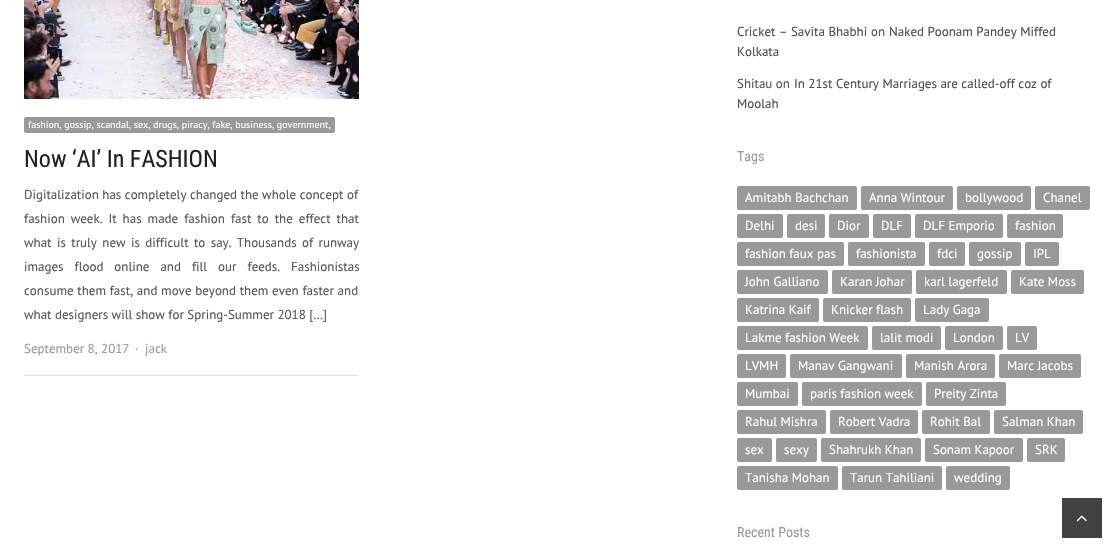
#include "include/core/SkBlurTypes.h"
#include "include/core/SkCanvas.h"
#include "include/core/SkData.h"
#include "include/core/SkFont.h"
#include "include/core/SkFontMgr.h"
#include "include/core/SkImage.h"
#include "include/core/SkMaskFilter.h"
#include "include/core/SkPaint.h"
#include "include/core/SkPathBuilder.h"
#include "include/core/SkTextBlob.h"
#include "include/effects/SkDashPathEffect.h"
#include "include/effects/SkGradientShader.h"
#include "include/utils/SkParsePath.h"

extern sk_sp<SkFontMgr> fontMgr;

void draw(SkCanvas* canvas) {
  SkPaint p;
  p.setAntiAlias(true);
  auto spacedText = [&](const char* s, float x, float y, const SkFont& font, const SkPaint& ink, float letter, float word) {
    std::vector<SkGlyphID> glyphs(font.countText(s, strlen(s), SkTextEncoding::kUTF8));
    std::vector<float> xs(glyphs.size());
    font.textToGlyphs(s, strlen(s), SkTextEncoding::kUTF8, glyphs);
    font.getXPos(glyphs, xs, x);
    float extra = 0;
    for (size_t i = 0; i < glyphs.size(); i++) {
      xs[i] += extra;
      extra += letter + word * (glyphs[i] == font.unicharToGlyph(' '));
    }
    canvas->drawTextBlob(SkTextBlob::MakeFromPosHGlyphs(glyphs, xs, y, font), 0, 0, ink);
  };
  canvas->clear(SK_ColorWHITE);
  canvas->drawImageRect(SkImages::DeferredFromEncodedData(SkData::MakeFromFileName("images/1.png")), SkRect::MakeLTRB(24, 0, 359, 99), SkSamplingOptions());
  p.setColor(SkColorSetRGB(153, 153, 153));
  canvas->drawRoundRect(SkRect::MakeLTRB(24, 117, 335, 133), 2, 2, p);
  p.setColor(SkColorSetRGB(224, 224, 224));
  canvas->drawRect(SkRect::MakeLTRB(24, 375, 359, 376), p);
  p.setColor(SkColorSetRGB(153, 153, 153));
  canvas->drawRoundRect(SkRect::MakeLTRB(737, 186, 857, 210), 2, 2, p);
  canvas->drawRoundRect(SkRect::MakeLTRB(861, 186, 953, 210), 2, 2, p);
  canvas->drawRoundRect(SkRect::MakeLTRB(957, 186, 1031, 210), 2, 2, p);
  canvas->drawRoundRect(SkRect::MakeLTRB(1035, 186, 1090, 210), 2, 2, p);
  canvas->drawRoundRect(SkRect::MakeLTRB(737, 214, 783, 238), 2, 2, p);
  canvas->drawRoundRect(SkRect::MakeLTRB(787, 214, 825, 238), 2, 2, p);
  canvas->drawRoundRect(SkRect::MakeLTRB(829, 214, 869, 238), 2, 2, p);
  canvas->drawRoundRect(SkRect::MakeLTRB(873, 214, 911, 238), 2, 2, p);
  canvas->drawRoundRect(SkRect::MakeLTRB(915, 214, 1003, 238), 2, 2, p);
  canvas->drawRoundRect(SkRect::MakeLTRB(1007, 214, 1063, 238), 2, 2, p);
  canvas->drawRoundRect(SkRect::MakeLTRB(737, 242, 844, 266), 2, 2, p);
  canvas->drawRoundRect(SkRect::MakeLTRB(848, 242, 925, 266), 2, 2, p);
  canvas->drawRoundRect(SkRect::MakeLTRB(929, 242, 965, 266), 2, 2, p);
  canvas->drawRoundRect(SkRect::MakeLTRB(969, 242, 1021, 266), 2, 2, p);
  canvas->drawRoundRect(SkRect::MakeLTRB(1025, 242, 1059, 266), 2, 2, p);
  canvas->drawRoundRect(SkRect::MakeLTRB(737, 270, 828, 294), 2, 2, p);
  canvas->drawRoundRect(SkRect::MakeLTRB(832, 270, 912, 294), 2, 2, p);
  canvas->drawRoundRect(SkRect::MakeLTRB(916, 270, 1007, 294), 2, 2, p);
  canvas->drawRoundRect(SkRect::MakeLTRB(1011, 270, 1084, 294), 2, 2, p);
  canvas->drawRoundRect(SkRect::MakeLTRB(737, 298, 819, 322), 2, 2, p);
  canvas->drawRoundRect(SkRect::MakeLTRB(823, 298, 911, 322), 2, 2, p);
  canvas->drawRoundRect(SkRect::MakeLTRB(915, 298, 989, 322), 2, 2, p);
  canvas->drawRoundRect(SkRect::MakeLTRB(737, 326, 868, 350), 2, 2, p);
  canvas->drawRoundRect(SkRect::MakeLTRB(872, 326, 941, 350), 2, 2, p);
  canvas->drawRoundRect(SkRect::MakeLTRB(945, 326, 1003, 350), 2, 2, p);
  canvas->drawRoundRect(SkRect::MakeLTRB(1007, 326, 1037, 350), 2, 2, p);
  canvas->drawRoundRect(SkRect::MakeLTRB(737, 354, 786, 378), 2, 2, p);
  canvas->drawRoundRect(SkRect::MakeLTRB(790, 354, 902, 378), 2, 2, p);
  canvas->drawRoundRect(SkRect::MakeLTRB(906, 354, 995, 378), 2, 2, p);
  canvas->drawRoundRect(SkRect::MakeLTRB(999, 354, 1081, 378), 2, 2, p);
  canvas->drawRoundRect(SkRect::MakeLTRB(737, 382, 798, 406), 2, 2, p);
  canvas->drawRoundRect(SkRect::MakeLTRB(802, 382, 922, 406), 2, 2, p);
  canvas->drawRoundRect(SkRect::MakeLTRB(926, 382, 1006, 406), 2, 2, p);
  canvas->drawRoundRect(SkRect::MakeLTRB(737, 410, 826, 434), 2, 2, p);
  canvas->drawRoundRect(SkRect::MakeLTRB(830, 410, 918, 434), 2, 2, p);
  canvas->drawRoundRect(SkRect::MakeLTRB(922, 410, 990, 434), 2, 2, p);
  canvas->drawRoundRect(SkRect::MakeLTRB(994, 410, 1083, 434), 2, 2, p);
  canvas->drawRoundRect(SkRect::MakeLTRB(737, 438, 772, 462), 2, 2, p);
  canvas->drawRoundRect(SkRect::MakeLTRB(776, 438, 817, 462), 2, 2, p);
  canvas->drawRoundRect(SkRect::MakeLTRB(821, 438, 921, 462), 2, 2, p);
  canvas->drawRoundRect(SkRect::MakeLTRB(925, 438, 1023, 462), 2, 2, p);
  canvas->drawRoundRect(SkRect::MakeLTRB(1027, 438, 1065, 462), 2, 2, p);
  canvas->drawRoundRect(SkRect::MakeLTRB(737, 466, 838, 490), 2, 2, p);
  canvas->drawRoundRect(SkRect::MakeLTRB(842, 466, 942, 490), 2, 2, p);
  canvas->drawRoundRect(SkRect::MakeLTRB(946, 466, 1010, 490), 2, 2, p);
  p.setColor(SkColorSetRGB(66, 66, 66));
  canvas->drawRect(SkRect::MakeLTRB(1062, 498, 1102, 538), p);
  canvas->drawImageRect(SkImages::DeferredFromEncodedData(SkData::MakeFromFileName("images/2.png")), SkRect::MakeLTRB(1076, 515, 1087, 522), SkSamplingOptions());
  SkFont font1(fontMgr->matchFamilyStyle("PT Sans", SkFontStyle::Normal()), 10);
  font1.setSubpixel(true);
  p.setColor(SK_ColorWHITE);
  canvas->drawString("fashion, gossip, scandal, sex, drugs, piracy, fake, business, government,", 28, 128, font1, p);
  SkFont font2(fontMgr->matchFamilyStyle("Roboto Condensed", SkFontStyle::Normal()), 24);
  font2.setSubpixel(true);
  p.setColor(SkColorSetRGB(34, 34, 34));
  canvas->drawString("Now ‘AI’ In FASHION", 24, 167, font2, p);
  SkFont font3(fontMgr->matchFamilyStyle("PT Sans", SkFontStyle::Normal()), 13);
  font3.setSubpixel(true);
  p.setColor(SkColorSetRGB(85, 85, 85));
  canvas->drawString("Digitalization has completely changed the whole concept of", 24, 199, font3, p);
  spacedText("fashion week. It has made fashion fast to the effect that", 24, 223, font3, p, 0, 2.5f);
  spacedText("what is truly new is difficult to say. Thousands of runway", 24, 247, font3, p, 0, 1.9f);
  spacedText("images flood online and fill our feeds. Fashionistas", 24, 271, font3, p, 0, 7.5f);
  spacedText("consume them fast, and move beyond them even faster and", 24, 295, font3, p, 0, 0.25f);
  canvas->drawString("what designers will show for Spring-Summer 2018 […]", 24, 319, font3, p);
  p.setColor(SkColorSetRGB(153, 153, 153));
  canvas->drawString("September 8, 2017", 24, 353, font3, p);
  canvas->drawString("·", 135, 353, font3, p);
  canvas->drawString("jack", 145, 353, font3, p);
  p.setColor(SkColorSetRGB(77, 77, 77));
  canvas->drawString("Cricket – Savita Bhabhi", 737, 36, font3, p);
  p.setColor(SkColorSetRGB(85, 85, 85));
  canvas->drawString("on", 871, 36, font3, p);
  p.setColor(SkColorSetRGB(77, 77, 77));
  canvas->drawString("Naked Poonam Pandey Miffed", 889, 36, font3, p);
  canvas->drawString("Kolkata", 737, 56, font3, p);
  p.setColor(SkColorSetRGB(85, 85, 85));
  canvas->drawString("Shitau on", 737, 88, font3, p);
  p.setColor(SkColorSetRGB(77, 77, 77));
  canvas->drawString("In 21st Century Marriages are called-off coz of", 794, 88, font3, p);
  canvas->drawString("Moolah", 737, 108, font3, p);
  SkFont font4(fontMgr->matchFamilyStyle("Roboto Condensed", SkFontStyle::Normal()), 14);
  font4.setSubpixel(true);
  p.setColor(SkColorSetRGB(153, 153, 153));
  canvas->drawString("Tags", 737, 161, font4, p);
  p.setColor(SK_ColorWHITE);
  canvas->drawString("Amitabh Bachchan", 745, 202, font3, p);
  canvas->drawString("Anna Wintour", 869, 202, font3, p);
  canvas->drawString("bollywood", 965, 202, font3, p);
  canvas->drawString("Chanel", 1043, 202, font3, p);
  canvas->drawString("Delhi", 745, 230, font3, p);
  canvas->drawString("desi", 795, 230, font3, p);
  canvas->drawString("Dior", 837, 230, font3, p);
  canvas->drawString("DLF", 881, 230, font3, p);
  canvas->drawString("DLF Emporio", 923, 230, font3, p);
  canvas->drawString("fashion", 1015, 230, font3, p);
  canvas->drawString("fashion faux pas", 745, 258, font3, p);
  canvas->drawString("fashionista", 856, 258, font3, p);
  canvas->drawString("fdci", 937, 258, font3, p);
  canvas->drawString("gossip", 977, 258, font3, p);
  canvas->drawString("IPL", 1033, 258, font3, p);
  canvas->drawString("John Galliano", 745, 286, font3, p);
  canvas->drawString("Karan Johar", 840, 286, font3, p);
  canvas->drawString("karl lagerfeld", 924, 286, font3, p);
  canvas->drawString("Kate Moss", 1019, 286, font3, p);
  canvas->drawString("Katrina Kaif", 745, 314, font3, p);
  canvas->drawString("Knicker flash", 831, 314, font3, p);
  canvas->drawString("Lady Gaga", 923, 314, font3, p);
  canvas->drawString("Lakme fashion Week", 745, 342, font3, p);
  canvas->drawString("lalit modi", 880, 342, font3, p);
  canvas->drawString("London", 953, 342, font3, p);
  canvas->drawString("LV", 1015, 342, font3, p);
  canvas->drawString("LVMH", 745, 370, font3, p);
  canvas->drawString("Manav Gangwani", 798, 370, font3, p);
  canvas->drawString("Manish Arora", 914, 370, font3, p);
  canvas->drawString("Marc Jacobs", 1007, 370, font3, p);
  canvas->drawString("Mumbai", 745, 398, font3, p);
  canvas->drawString("paris fashion week", 810, 398, font3, p);
  canvas->drawString("Preity Zinta", 934, 398, font3, p);
  canvas->drawString("Rahul Mishra", 745, 426, font3, p);
  canvas->drawString("Robert Vadra", 838, 426, font3, p);
  canvas->drawString("Rohit Bal", 930, 426, font3, p);
  canvas->drawString("Salman Khan", 1002, 426, font3, p);
  canvas->drawString("sex", 745, 454, font3, p);
  canvas->drawString("sexy", 784, 454, font3, p);
  canvas->drawString("Shahrukh Khan", 829, 454, font3, p);
  canvas->drawString("Sonam Kapoor", 933, 454, font3, p);
  canvas->drawString("SRK", 1035, 454, font3, p);
  canvas->drawString("Tanisha Mohan", 745, 482, font3, p);
  canvas->drawString("Tarun Tahiliani", 850, 482, font3, p);
  canvas->drawString("wedding", 954, 482, font3, p);
  p.setColor(SkColorSetRGB(153, 153, 153));
  canvas->drawString("Recent Posts", 737, 537, font4, p);
}
